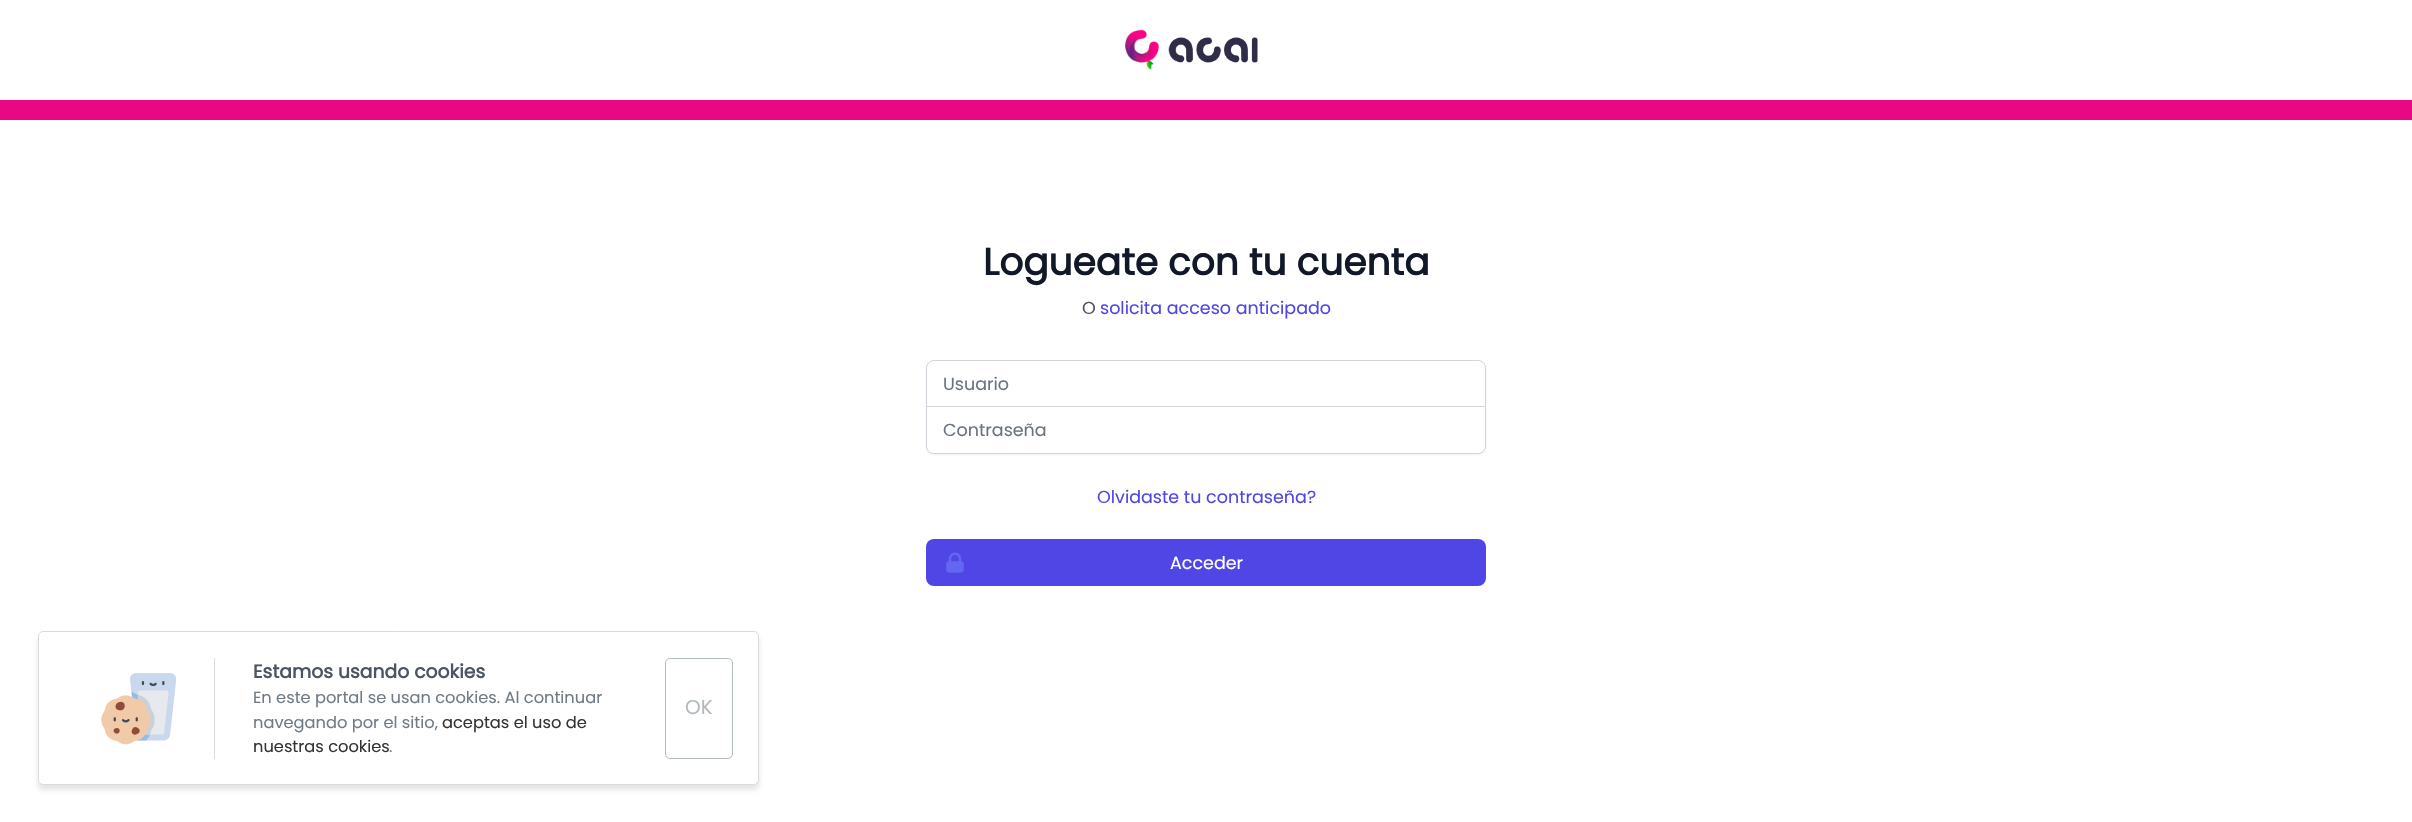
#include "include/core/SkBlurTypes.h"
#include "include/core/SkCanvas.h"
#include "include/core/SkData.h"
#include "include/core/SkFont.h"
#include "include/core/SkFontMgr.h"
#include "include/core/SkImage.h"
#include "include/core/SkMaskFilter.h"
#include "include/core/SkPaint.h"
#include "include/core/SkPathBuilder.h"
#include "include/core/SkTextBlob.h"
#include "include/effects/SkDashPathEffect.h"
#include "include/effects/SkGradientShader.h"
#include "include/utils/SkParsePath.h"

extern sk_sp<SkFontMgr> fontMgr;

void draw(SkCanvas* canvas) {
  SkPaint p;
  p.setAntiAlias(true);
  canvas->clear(SK_ColorWHITE);
  canvas->drawImageRect(SkImages::DeferredFromEncodedData(SkData::MakeFromFileName("images/1.png")), SkRect::MakeLTRB(1125, 30, 1159, 70), SkSamplingOptions());
  canvas->drawImageRect(SkImages::DeferredFromEncodedData(SkData::MakeFromFileName("images/2.png")), SkRect::MakeLTRB(1168, 37, 1258, 63), SkSamplingOptions());
  p.setColor(SkColorSetRGB(231, 8, 131));
  canvas->drawRect(SkRect::MakeLTRB(0, 100, 2412, 120), p);
  p.setColor(SkColorSetARGB(13, 0, 0, 0));
  p.setMaskFilter(SkMaskFilter::MakeBlur(kNormal_SkBlurStyle, 1));
  canvas->drawRoundRect(SkRect::MakeLTRB(926, 361, 1486, 455), 8, 8, p);
  p.setMaskFilter(nullptr);
  p.setColor(SK_ColorWHITE);
  canvas->drawPath(SkPathBuilder().moveTo(934, 360.5f).lineTo(1478, 360.5f).cubicTo(1482, 360.5f, 1485.5f, 364, 1485.5f, 368).lineTo(1485.5f, 407.5f).lineTo(926.5f, 407.5f).lineTo(926.5f, 368).cubicTo(926.5f, 364, 930, 360.5f, 934, 360.5f).close().detach(), p);
  p.setStyle(SkPaint::kStroke_Style);
  p.setStrokeWidth(1);
  p.setColor(SkColorSetRGB(209, 213, 219));
  canvas->drawPath(SkPathBuilder().moveTo(934, 360.5f).lineTo(1478, 360.5f).cubicTo(1482, 360.5f, 1485.5f, 364, 1485.5f, 368).lineTo(1485.5f, 407.5f).lineTo(926.5f, 407.5f).lineTo(926.5f, 368).cubicTo(926.5f, 364, 930, 360.5f, 934, 360.5f).close().detach(), p);
  p.setStyle(SkPaint::kFill_Style);
  p.setColor(SK_ColorWHITE);
  canvas->drawPath(SkPathBuilder().moveTo(926.5f, 406.5f).lineTo(1485.5f, 406.5f).lineTo(1485.5f, 446).cubicTo(1485.5f, 450, 1482, 453.5f, 1478, 453.5f).lineTo(934, 453.5f).cubicTo(930, 453.5f, 926.5f, 450, 926.5f, 446).close().detach(), p);
  p.setStyle(SkPaint::kStroke_Style);
  p.setColor(SkColorSetRGB(209, 213, 219));
  canvas->drawPath(SkPathBuilder().moveTo(926.5f, 406.5f).lineTo(1485.5f, 406.5f).lineTo(1485.5f, 446).cubicTo(1485.5f, 450, 1482, 453.5f, 1478, 453.5f).lineTo(934, 453.5f).cubicTo(930, 453.5f, 926.5f, 450, 926.5f, 446).close().detach(), p);
  p.setStyle(SkPaint::kFill_Style);
  p.setColor(SkColorSetRGB(79, 70, 229));
  canvas->drawRoundRect(SkRect::MakeLTRB(926, 539, 1486, 586), 8, 8, p);
  canvas->drawImageRect(SkImages::DeferredFromEncodedData(SkData::MakeFromFileName("images/3.png")), SkRect::MakeLTRB(946, 552, 964, 573), SkSamplingOptions());
  p.setColor(SkColorSetARGB(26, 0, 0, 0));
  p.setMaskFilter(SkMaskFilter::MakeBlur(kNormal_SkBlurStyle, 2.5f));
  canvas->drawRoundRect(SkRect::MakeLTRB(38, 636, 759, 790), 5, 5, p);
  p.setMaskFilter(nullptr);
  p.setColor(SK_ColorWHITE);
  canvas->drawRoundRect(SkRect::MakeLTRB(38.5f, 631.5f, 758.5f, 784.5f), 4.5f, 4.5f, p);
  p.setStyle(SkPaint::kStroke_Style);
  p.setColor(SkColorSetRGB(217, 219, 221));
  canvas->drawRoundRect(SkRect::MakeLTRB(38.5f, 631.5f, 758.5f, 784.5f), 4.5f, 4.5f, p);
  p.setStyle(SkPaint::kFill_Style);
  canvas->drawRect(SkRect::MakeLTRB(214, 658, 215, 759), p);
  canvas->drawImageRect(SkImages::DeferredFromEncodedData(SkData::MakeFromFileName("images/4.png")), SkRect::MakeLTRB(101, 673, 176, 745), SkSamplingOptions());
  p.setStyle(SkPaint::kStroke_Style);
  p.setColor(SkColorSetRGB(180, 187, 191));
  canvas->drawRoundRect(SkRect::MakeLTRB(665.5f, 658.5f, 732.5f, 758.5f), 4.5f, 4.5f, p);
  SkFont font1(fontMgr->matchFamilyStyle("Poppins", SkFontStyle::Bold()), 37.5f);
  font1.setSubpixel(true);
  p.setStyle(SkPaint::kFill_Style);
  p.setColor(SkColorSetRGB(17, 24, 39));
  canvas->drawString("Logueate con tu cuenta", 983, 275, font1, p);
  SkFont font2(fontMgr->matchFamilyStyle("Poppins", SkFontStyle::Normal()), 17.5f);
  font2.setSubpixel(true);
  p.setColor(SkColorSetRGB(75, 85, 99));
  canvas->drawString("O", 1082, 314, font2, p);
  p.setColor(SkColorSetRGB(79, 70, 229));
  canvas->drawString("solicita acceso anticipado", 1100, 314, font2, p);
  p.setColor(SkColorSetRGB(107, 114, 128));
  canvas->drawString("Usuario", 943, 390, font2, p);
  canvas->drawString("Contraseña", 943, 436, font2, p);
  p.setColor(SkColorSetRGB(79, 70, 229));
  canvas->drawString("Olvidaste tu contraseña?", 1097, 503, font2, p);
  p.setColor(SK_ColorWHITE);
  canvas->drawString("Acceder", 1170, 569, font2, p);
  SkFont font3(fontMgr->matchFamilyStyle("Poppins", SkFontStyle::Bold()), 18.75f);
  font3.setSubpixel(true);
  p.setColor(SkColorSetRGB(75, 85, 99));
  canvas->drawString("Estamos usando cookies", 253, 678, font3, p);
  SkFont font4(fontMgr->matchFamilyStyle("Poppins", SkFontStyle::Normal()), 16.25f);
  font4.setSubpixel(true);
  p.setColor(SkColorSetRGB(112, 122, 133));
  canvas->drawString("En este portal se usan cookies. Al continuar", 253, 703, font4, p);
  canvas->drawString("navegando por el sitio,", 253, 728, font4, p);
  p.setColor(SkColorSetRGB(51, 51, 51));
  canvas->drawString("aceptas el uso de", 442, 728, font4, p);
  canvas->drawString("nuestras cookies", 253, 752, font4, p);
  p.setColor(SkColorSetRGB(112, 122, 133));
  canvas->drawString(".", 389, 752, font4, p);
  SkFont font5(fontMgr->matchFamilyStyle("Poppins", SkFontStyle::Normal()), 20);
  font5.setSubpixel(true);
  p.setColor(SkColorSetRGB(180, 187, 191));
  canvas->drawString("OK", 685, 714, font5, p);
}
